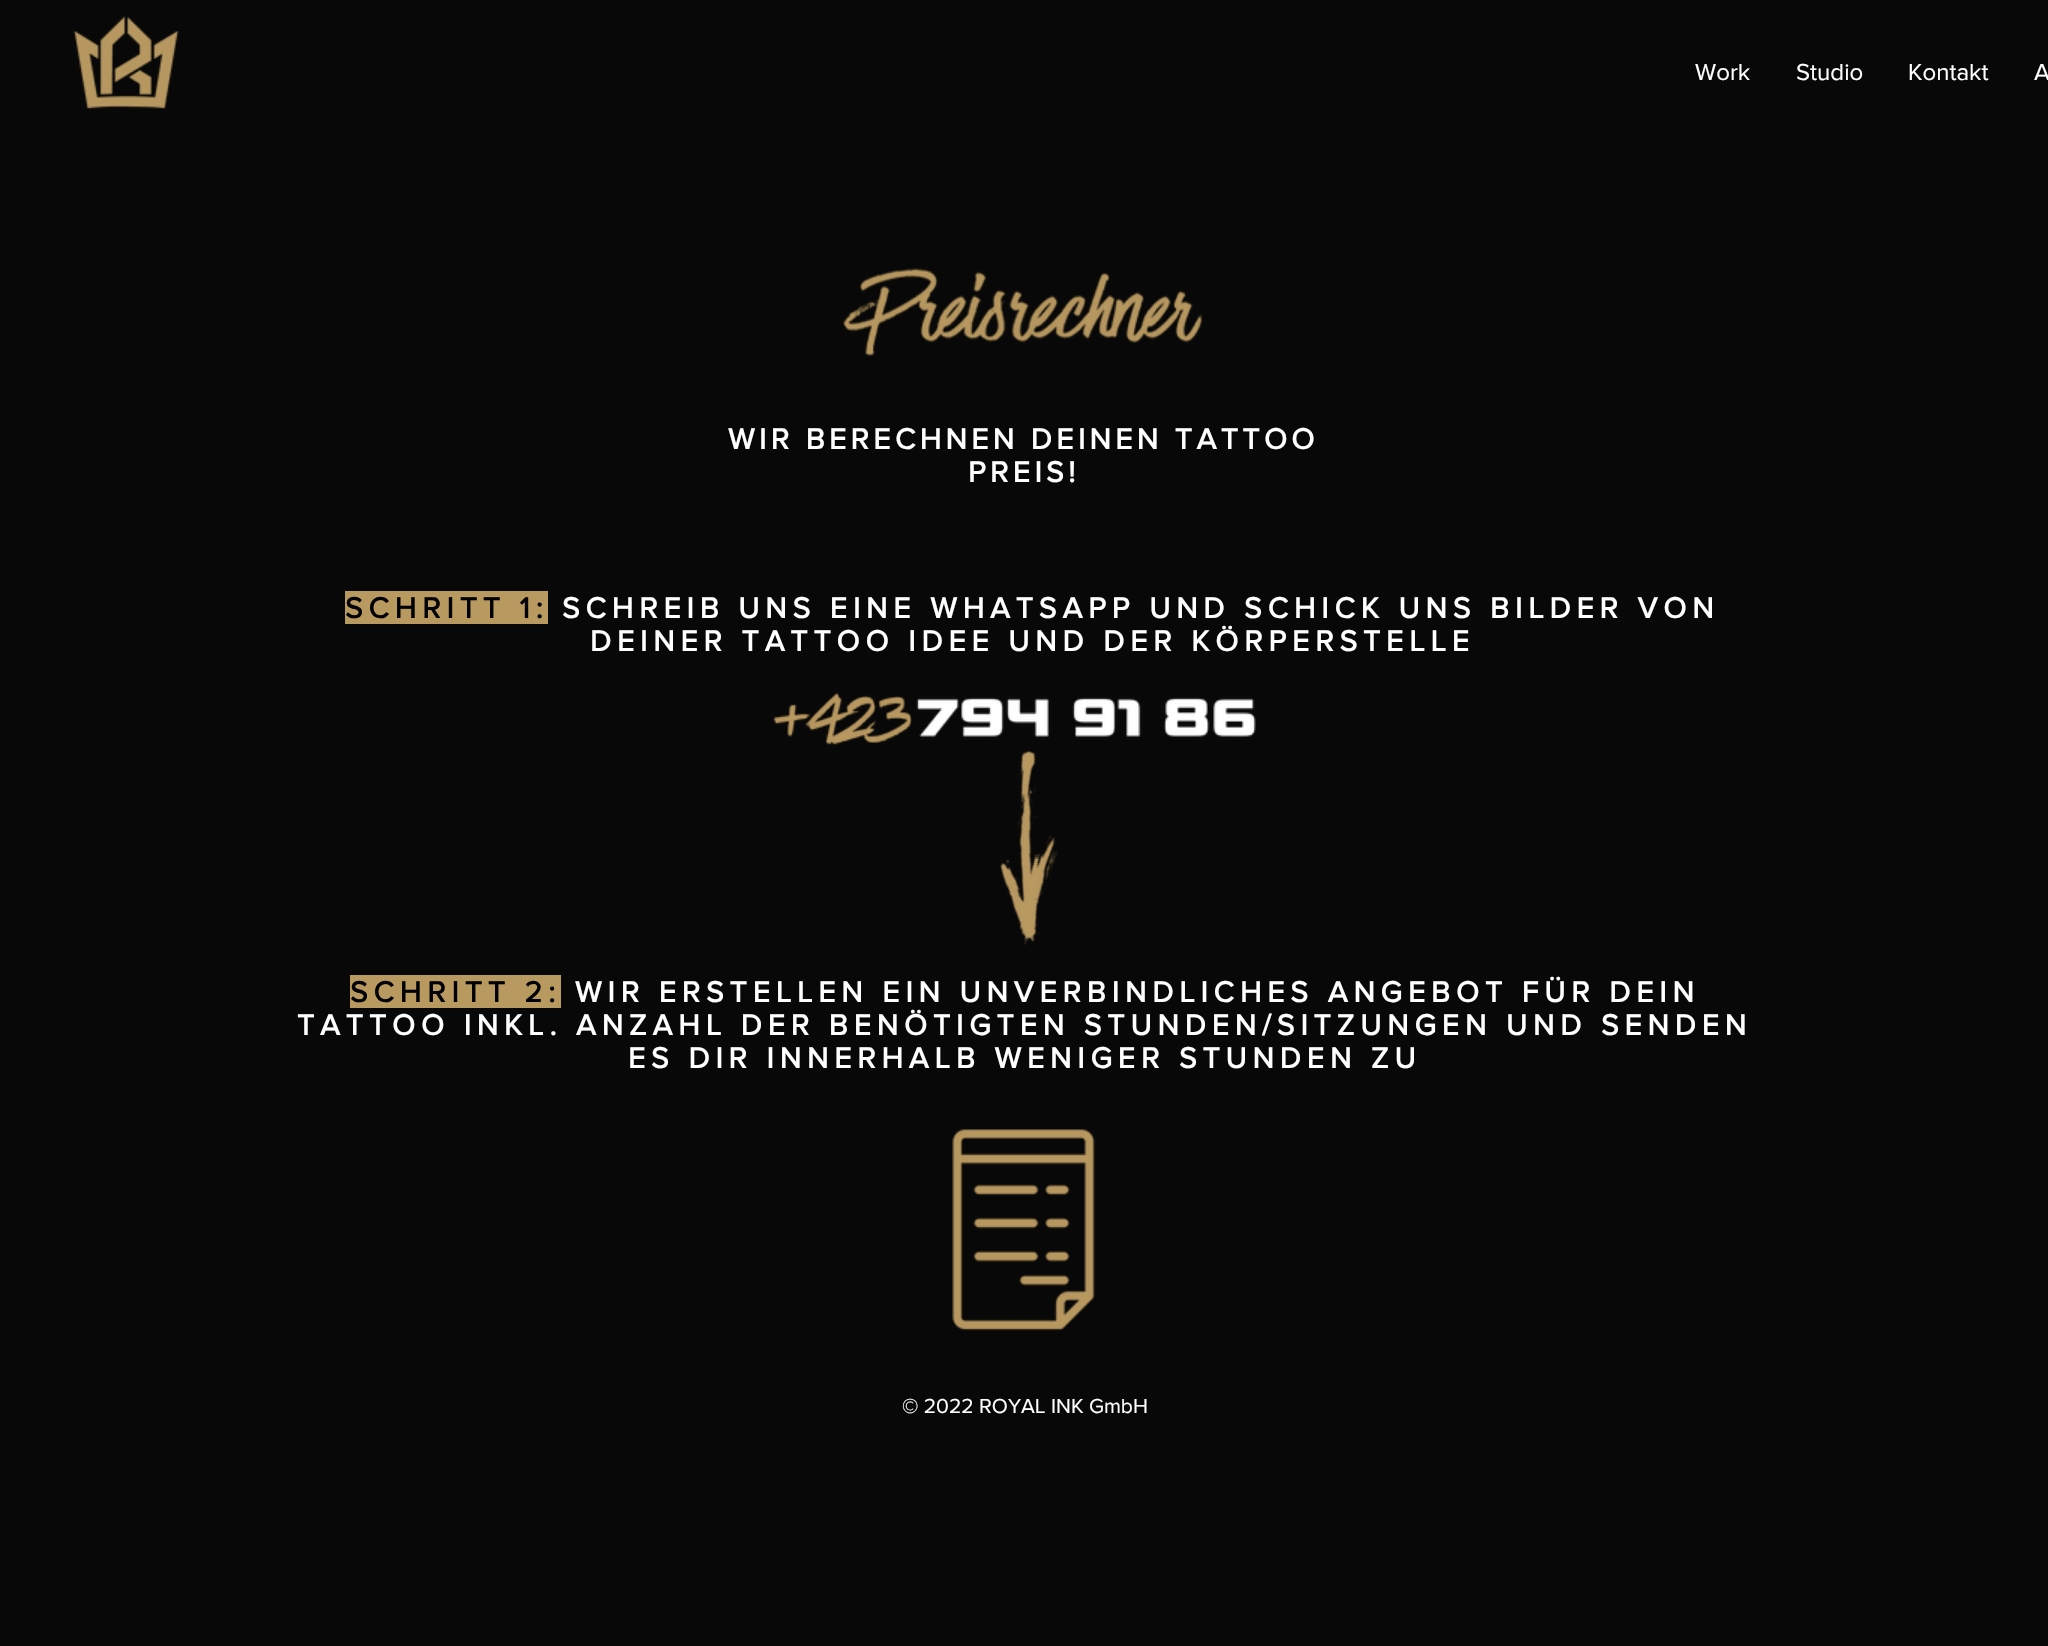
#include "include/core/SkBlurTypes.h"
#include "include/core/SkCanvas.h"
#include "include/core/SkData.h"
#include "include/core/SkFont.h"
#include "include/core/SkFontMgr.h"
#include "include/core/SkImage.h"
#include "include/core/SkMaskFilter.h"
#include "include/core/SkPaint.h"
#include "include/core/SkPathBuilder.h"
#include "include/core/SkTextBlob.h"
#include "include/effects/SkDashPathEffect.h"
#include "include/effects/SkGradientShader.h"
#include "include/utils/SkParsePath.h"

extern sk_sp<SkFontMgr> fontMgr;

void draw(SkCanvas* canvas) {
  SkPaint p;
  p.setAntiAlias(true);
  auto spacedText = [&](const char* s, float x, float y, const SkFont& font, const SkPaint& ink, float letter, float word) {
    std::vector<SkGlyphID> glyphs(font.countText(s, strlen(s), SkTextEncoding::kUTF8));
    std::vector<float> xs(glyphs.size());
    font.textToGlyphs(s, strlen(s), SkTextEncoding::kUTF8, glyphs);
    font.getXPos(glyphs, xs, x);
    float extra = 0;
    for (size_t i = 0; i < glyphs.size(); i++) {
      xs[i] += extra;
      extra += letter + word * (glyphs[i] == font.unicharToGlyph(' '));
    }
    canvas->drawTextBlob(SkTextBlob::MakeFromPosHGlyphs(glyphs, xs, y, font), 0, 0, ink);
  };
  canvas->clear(SkColorSetRGB(8, 8, 8));
  canvas->drawImageRect(SkImages::DeferredFromEncodedData(SkData::MakeFromFileName("images/1.png")), SkRect::MakeLTRB(73, 16, 179, 109), SkSamplingOptions());
  canvas->drawImageRect(SkImages::DeferredFromEncodedData(SkData::MakeFromFileName("images/2.png")), SkRect::MakeLTRB(842, 268, 1203, 356), SkSamplingOptions());
  p.setColor(SkColorSetRGB(184, 153, 96));
  canvas->drawRect(SkRect::MakeLTRB(345, 591, 548, 624), p);
  canvas->drawImageRect(SkImages::DeferredFromEncodedData(SkData::MakeFromFileName("images/3.png")), SkRect::MakeLTRB(773, 692, 1256, 745), SkSamplingOptions());
  canvas->drawImageRect(SkImages::DeferredFromEncodedData(SkData::MakeFromFileName("images/4.png")), SkRect::MakeLTRB(1000, 750, 1058, 945), SkSamplingOptions());
  canvas->drawRect(SkRect::MakeLTRB(350, 975, 561, 1008), p);
  canvas->drawImageRect(SkImages::DeferredFromEncodedData(SkData::MakeFromFileName("images/5.png")), SkRect::MakeLTRB(952, 1129, 1096, 1331), SkSamplingOptions());
  SkFont font1(fontMgr->matchFamilyStyle("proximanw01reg", SkFontStyle::Normal()), 24);
  font1.setSubpixel(true);
  p.setColor(SK_ColorWHITE);
  canvas->drawString("Work", 1695, 80, font1, p);
  canvas->drawString("Studio", 1796, 80, font1, p);
  canvas->drawString("Kontakt", 1908, 80, font1, p);
  canvas->drawString("A", 2034, 80, font1, p);
  SkFont font2(fontMgr->matchFamilyStyle("proximanw01reg", SkFontStyle::Bold()), 30);
  font2.setSubpixel(true);
  spacedText("WIR BERECHNEN DEINEN TATTOO", 728, 449, font2, p, 4.5f, 0);
  spacedText("PREIS!", 968, 482, font2, p, 4.5f, 0);
  p.setColor(SK_ColorBLACK);
  spacedText("SCHRITT 1:", 345, 618, font2, p, 6, 0);
  p.setColor(SK_ColorWHITE);
  spacedText("SCHREIB UNS EINE WHATSAPP UND SCHICK UNS BILDER VON", 562, 618, font2, p, 6, 0);
  spacedText("DEINER TATTOO IDEE UND DER KÖRPERSTELLE", 590, 651, font2, p, 6, 0);
  p.setColor(SK_ColorBLACK);
  spacedText("SCHRITT 2:", 350, 1002, font2, p, 6, 0);
  p.setColor(SK_ColorWHITE);
  spacedText("WIR ERSTELLEN EIN UNVERBINDLICHES ANGEBOT FÜR DEIN", 575, 1002, font2, p, 6, 0);
  spacedText("TATTOO INKL. ANZAHL DER BENÖTIGTEN STUNDEN/SITZUNGEN UND SENDEN", 297, 1035, font2, p, 6, 0);
  spacedText("ES DIR INNERHALB WENIGER STUNDEN ZU", 628, 1068, font2, p, 6, 0);
  SkFont font3(fontMgr->matchFamilyStyle("proximanw01reg", SkFontStyle::Normal()), 21);
  font3.setSubpixel(true);
  canvas->drawString("© 2022 ROYAL INK GmbH", 902, 1413, font3, p);
}
